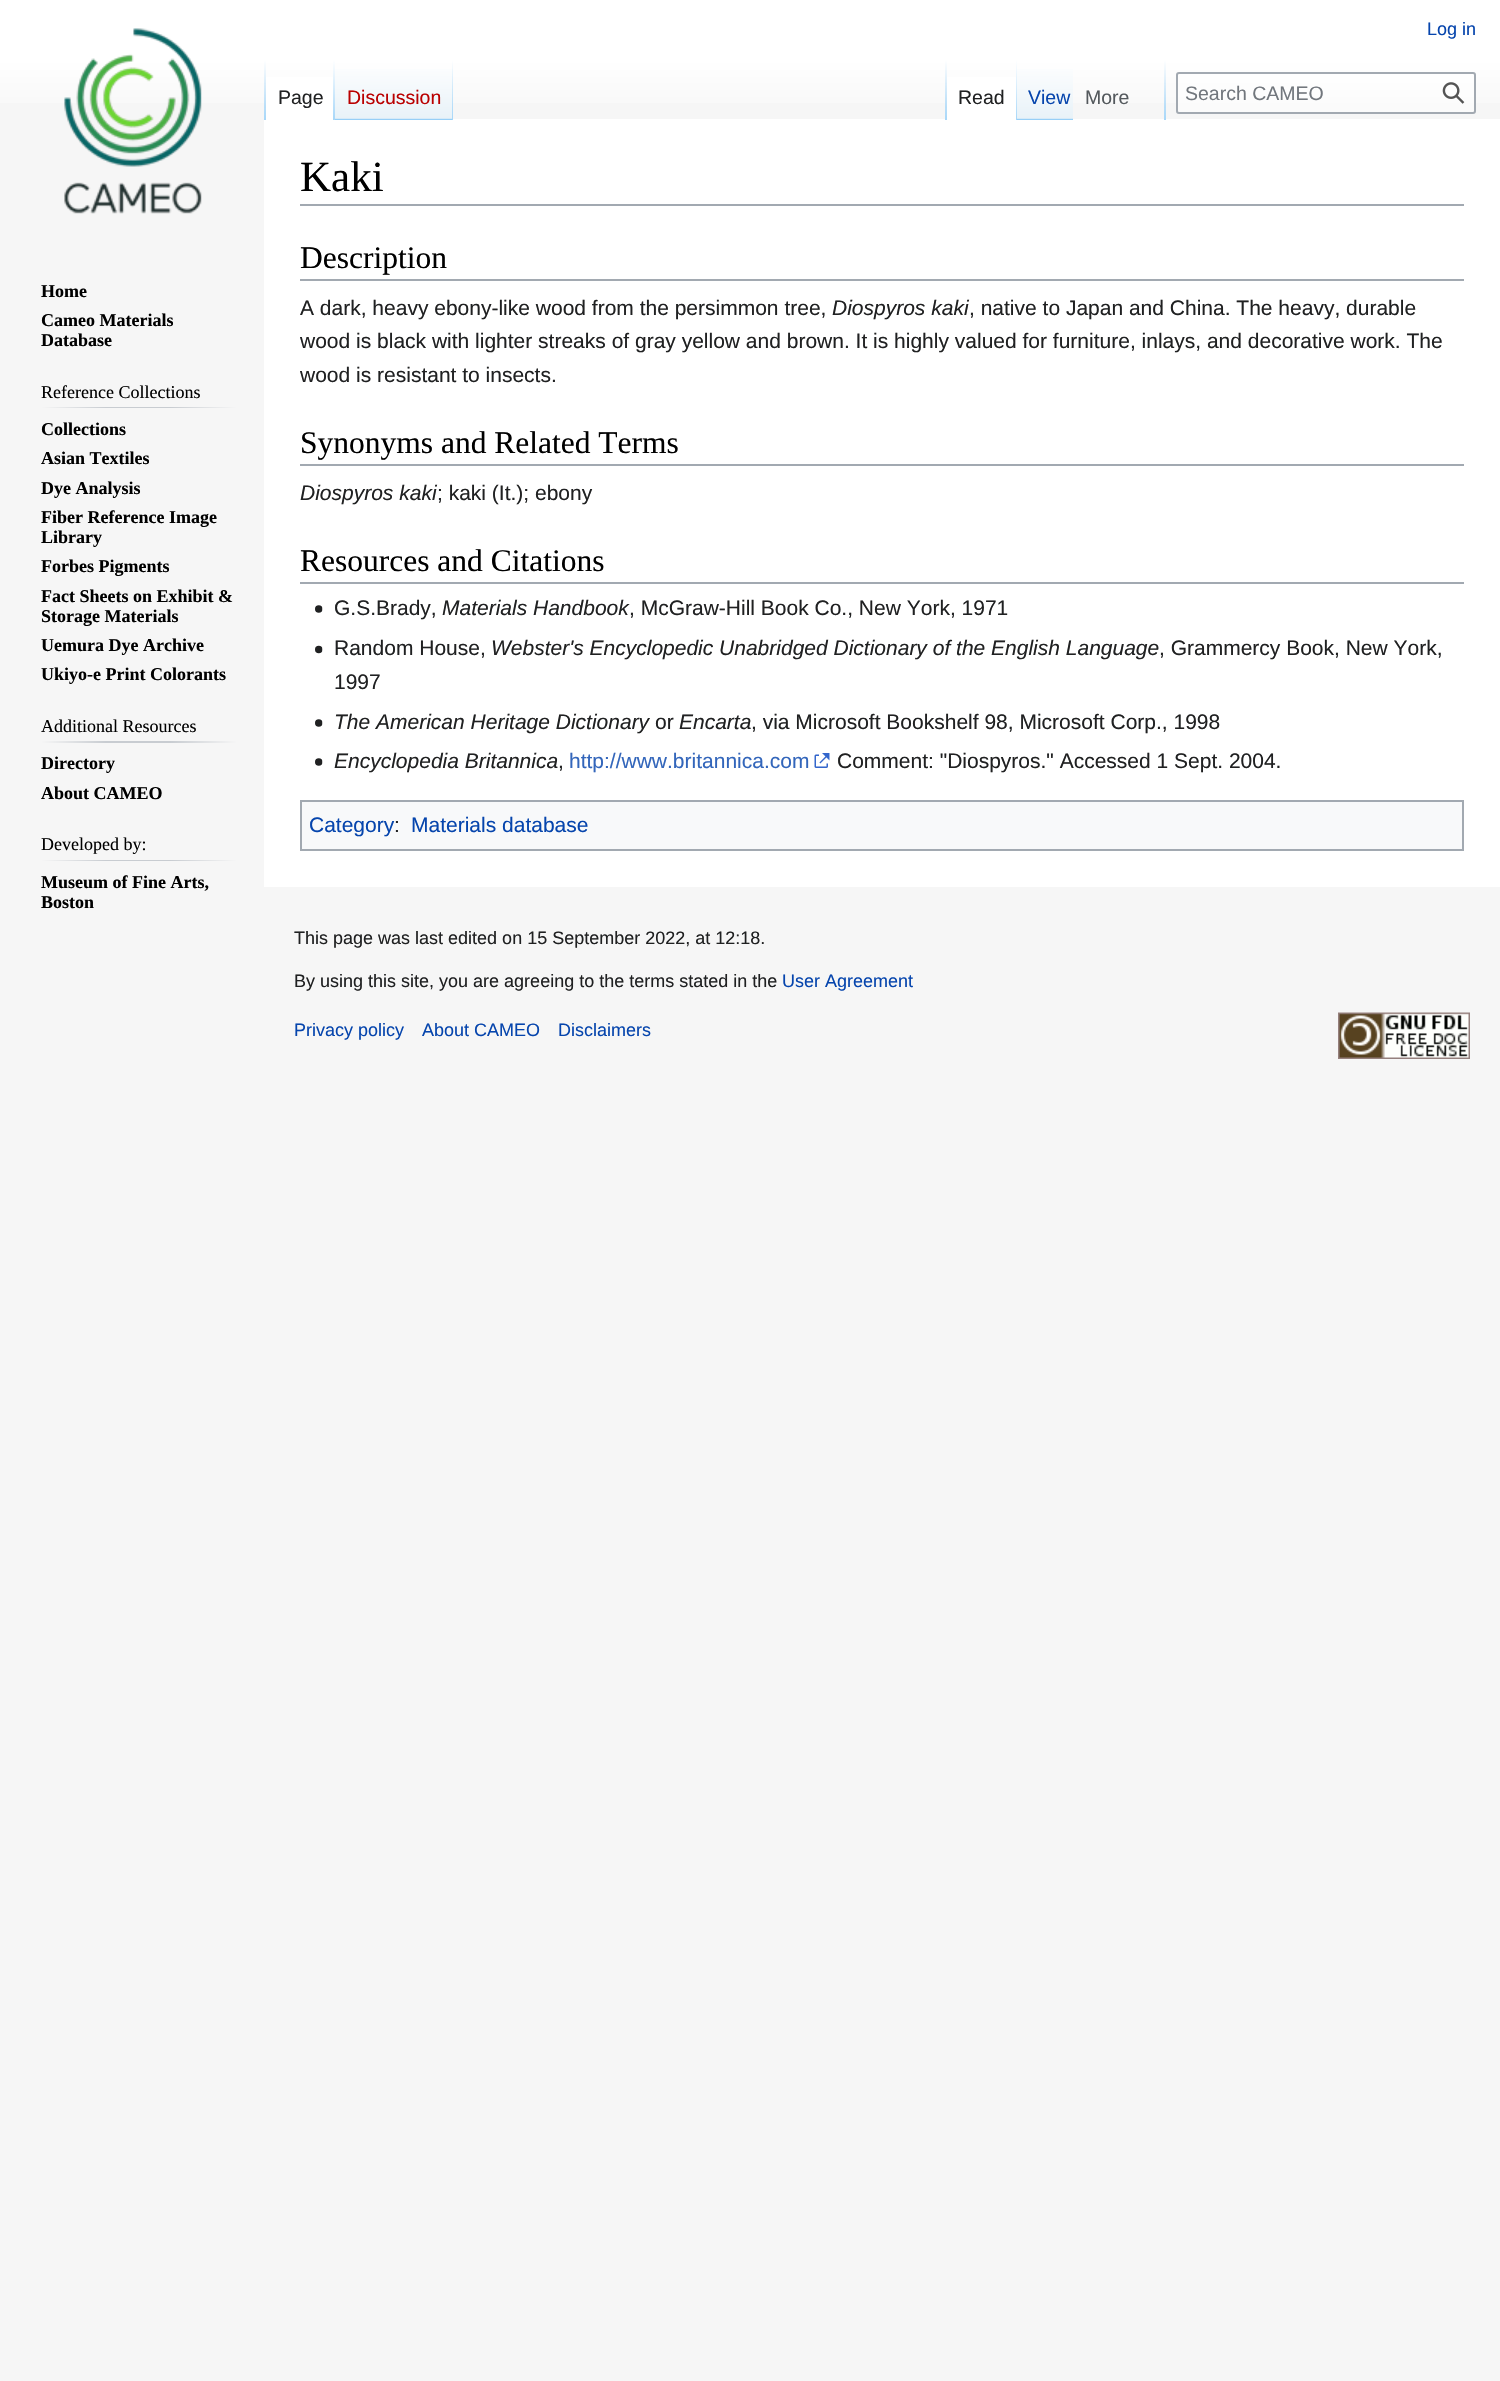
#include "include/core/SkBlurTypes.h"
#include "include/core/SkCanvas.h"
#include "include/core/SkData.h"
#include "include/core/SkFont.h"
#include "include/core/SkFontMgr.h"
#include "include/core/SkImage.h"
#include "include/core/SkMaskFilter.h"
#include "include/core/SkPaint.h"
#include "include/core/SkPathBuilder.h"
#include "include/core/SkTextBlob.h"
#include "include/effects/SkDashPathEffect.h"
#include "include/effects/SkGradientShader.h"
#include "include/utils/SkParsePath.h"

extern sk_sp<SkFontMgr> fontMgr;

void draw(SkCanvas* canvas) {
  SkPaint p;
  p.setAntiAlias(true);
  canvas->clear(SkColorSetRGB(246, 246, 246));
  {
    const SkColor colors[] = {SK_ColorWHITE, SkColorSetRGB(246, 246, 246)};
    const float stops[] = {0.5f, 1};
    const SkPoint ends[] = {{750, 0}, {750, 120}};
    p.setShader(SkGradientShader::MakeLinear(ends, colors, stops, 2, SkTileMode::kClamp));
    p.setAlpha(255);
  }
  canvas->drawRect(SkRect::MakeLTRB(0, 0, 1500, 103), p);
  p.setShader(nullptr);
  p.setColor(SK_ColorWHITE);
  canvas->drawRect(SkRect::MakeLTRB(264, 119, 1500, 887), p);
  {
    const SkColor colors[] = {SkColorSetARGB(0, 167, 215, 249), SkColorSetRGB(167, 215, 249)};
    const float stops[] = {0, 1};
    const SkPoint ends[] = {{265, 60}, {265, 120}};
    p.setShader(SkGradientShader::MakeLinear(ends, colors, stops, 2, SkTileMode::kClamp));
    p.setAlpha(255);
  }
  canvas->drawRect(SkRect::MakeLTRB(264, 60, 266, 120), p);
  p.setShader(nullptr);
  p.setColor(SK_ColorWHITE);
  canvas->drawRect(SkRect::MakeLTRB(266, 77, 333, 119), p);
  {
    const SkColor colors[] = {SK_ColorWHITE, SkColorSetRGB(167, 215, 249)};
    const float stops[] = {0, 1};
    const SkPoint ends[] = {{334, 60}, {334, 120}};
    p.setShader(SkGradientShader::MakeLinear(ends, colors, stops, 2, SkTileMode::kClamp));
    p.setAlpha(255);
  }
  canvas->drawRect(SkRect::MakeLTRB(333, 60, 335, 120), p);
  {
    const SkColor colors[] = {SkColorSetRGB(119, 193, 246), SkColorSetRGB(232, 242, 248), SK_ColorWHITE};
    const float stops[] = {0, 0.03f, 1};
    const SkPoint ends[] = {{394, 120}, {394, 60}};
    p.setShader(SkGradientShader::MakeLinear(ends, colors, stops, 3, SkTileMode::kClamp));
    p.setAlpha(255);
  }
  canvas->drawRect(SkRect::MakeLTRB(335, 69, 453, 120), p);
  {
    const SkColor colors[] = {SkColorSetARGB(0, 167, 215, 249), SkColorSetRGB(167, 215, 249)};
    const float stops[] = {0, 1};
    const SkPoint ends[] = {{452, 60}, {452, 120}};
    p.setShader(SkGradientShader::MakeLinear(ends, colors, stops, 2, SkTileMode::kClamp));
    p.setAlpha(255);
  }
  canvas->drawRect(SkRect::MakeLTRB(452, 60, 453, 120), p);
  {
    const SkColor colors[] = {SkColorSetARGB(0, 167, 215, 249), SkColorSetRGB(167, 215, 249)};
    const float stops[] = {0, 1};
    const SkPoint ends[] = {{946, 60}, {946, 120}};
    p.setShader(SkGradientShader::MakeLinear(ends, colors, stops, 2, SkTileMode::kClamp));
    p.setAlpha(255);
  }
  canvas->drawRect(SkRect::MakeLTRB(945, 60, 947, 120), p);
  p.setShader(nullptr);
  p.setColor(SK_ColorWHITE);
  canvas->drawRect(SkRect::MakeLTRB(947, 77, 1016, 119), p);
  {
    const SkColor colors[] = {SK_ColorWHITE, SkColorSetRGB(167, 215, 249)};
    const float stops[] = {0, 1};
    const SkPoint ends[] = {{1016, 60}, {1016, 120}};
    p.setShader(SkGradientShader::MakeLinear(ends, colors, stops, 2, SkTileMode::kClamp));
    p.setAlpha(255);
  }
  canvas->drawRect(SkRect::MakeLTRB(1016, 60, 1017, 120), p);
  {
    const SkColor colors[] = {SkColorSetRGB(119, 193, 246), SkColorSetRGB(232, 242, 248), SK_ColorWHITE};
    const float stops[] = {0, 0.03f, 1};
    const SkPoint ends[] = {{1045, 120}, {1045, 60}};
    p.setShader(SkGradientShader::MakeLinear(ends, colors, stops, 3, SkTileMode::kClamp));
    p.setAlpha(255);
  }
  canvas->drawRect(SkRect::MakeLTRB(1017, 69, 1073, 120), p);
  {
    const SkColor colors[] = {SkColorSetARGB(0, 167, 215, 249), SkColorSetRGB(167, 215, 249)};
    const float stops[] = {0, 1};
    const SkPoint ends[] = {{1165, 60}, {1165, 120}};
    p.setShader(SkGradientShader::MakeLinear(ends, colors, stops, 2, SkTileMode::kClamp));
    p.setAlpha(255);
  }
  canvas->drawRect(SkRect::MakeLTRB(1164, 60, 1166, 120), p);
  p.setShader(nullptr);
  p.setColor(SkColorSetARGB(128, 255, 255, 255));
  canvas->drawRoundRect(SkRect::MakeLTRB(1177, 73, 1475, 113), 2, 2, p);
  p.setStyle(SkPaint::kStroke_Style);
  p.setStrokeWidth(2);
  p.setColor(SkColorSetRGB(162, 169, 177));
  canvas->drawRoundRect(SkRect::MakeLTRB(1177, 73, 1475, 113), 2, 2, p);
  canvas->drawImageRect(SkImages::DeferredFromEncodedData(SkData::MakeFromFileName("images/1.png")), SkRect::MakeLTRB(1442, 82, 1465, 104), SkSamplingOptions());
  canvas->drawImageRect(SkImages::DeferredFromEncodedData(SkData::MakeFromFileName("images/2.png")), SkRect::MakeLTRB(64, 28, 202, 214), SkSamplingOptions());
  p.setStyle(SkPaint::kFill_Style);
  {
    const SkColor colors[] = {SkColorSetRGB(246, 246, 246), SkColorSetRGB(200, 204, 209), SkColorSetRGB(200, 204, 209), SkColorSetRGB(246, 246, 246)};
    const float stops[] = {0, 0.33f, 0.66f, 1};
    const SkPoint ends[] = {{41, 407}, {237, 407}};
    p.setShader(SkGradientShader::MakeLinear(ends, colors, stops, 4, SkTileMode::kClamp));
    p.setAlpha(255);
  }
  canvas->drawRect(SkRect::MakeLTRB(41, 407, 237, 408), p);
  {
    const SkColor colors[] = {SkColorSetRGB(246, 246, 246), SkColorSetRGB(200, 204, 209), SkColorSetRGB(200, 204, 209), SkColorSetRGB(246, 246, 246)};
    const float stops[] = {0, 0.33f, 0.66f, 1};
    const SkPoint ends[] = {{41, 742}, {237, 742}};
    p.setShader(SkGradientShader::MakeLinear(ends, colors, stops, 4, SkTileMode::kClamp));
    p.setAlpha(255);
  }
  canvas->drawRect(SkRect::MakeLTRB(41, 741, 237, 743), p);
  {
    const SkColor colors[] = {SkColorSetRGB(246, 246, 246), SkColorSetRGB(200, 204, 209), SkColorSetRGB(200, 204, 209), SkColorSetRGB(246, 246, 246)};
    const float stops[] = {0, 0.33f, 0.66f, 1};
    const SkPoint ends[] = {{41, 860}, {237, 860}};
    p.setShader(SkGradientShader::MakeLinear(ends, colors, stops, 4, SkTileMode::kClamp));
    p.setAlpha(255);
  }
  canvas->drawRect(SkRect::MakeLTRB(41, 860, 237, 861), p);
  p.setShader(nullptr);
  p.setColor(SkColorSetRGB(162, 169, 177));
  canvas->drawRect(SkRect::MakeLTRB(300, 204, 1464, 206), p);
  canvas->drawRect(SkRect::MakeLTRB(300, 279, 1464, 281), p);
  canvas->drawRect(SkRect::MakeLTRB(300, 464, 1464, 466), p);
  canvas->drawRect(SkRect::MakeLTRB(300, 582, 1464, 584), p);
  canvas->drawImageRect(SkImages::DeferredFromEncodedData(SkData::MakeFromFileName("images/3.png")), SkRect::MakeLTRB(315, 605, 323, 613), SkSamplingOptions());
  canvas->drawImageRect(SkImages::DeferredFromEncodedData(SkData::MakeFromFileName("images/4.png")), SkRect::MakeLTRB(315, 645, 323, 654), SkSamplingOptions());
  canvas->drawImageRect(SkImages::DeferredFromEncodedData(SkData::MakeFromFileName("images/3.png")), SkRect::MakeLTRB(315, 719, 323, 727), SkSamplingOptions());
  canvas->drawImageRect(SkImages::DeferredFromEncodedData(SkData::MakeFromFileName("images/3.png")), SkRect::MakeLTRB(315, 758, 323, 766), SkSamplingOptions());
  canvas->drawImageRect(SkImages::DeferredFromEncodedData(SkData::MakeFromFileName("images/5.png")), SkRect::MakeLTRB(814, 753, 830, 768), SkSamplingOptions());
  p.setColor(SkColorSetRGB(248, 249, 250));
  canvas->drawRect(SkRect::MakeLTRB(301, 801, 1463, 850), p);
  p.setStyle(SkPaint::kStroke_Style);
  p.setColor(SkColorSetRGB(162, 169, 177));
  canvas->drawRect(SkRect::MakeLTRB(301, 801, 1463, 850), p);
  canvas->drawImageRect(SkImages::DeferredFromEncodedData(SkData::MakeFromFileName("images/6.png")), SkRect::MakeLTRB(1338, 1012, 1470, 1059), SkSamplingOptions());
  SkFont font1(fontMgr->matchFamilyStyle("Liberation Sans", SkFontStyle::Normal()), 18);
  font1.setSubpixel(true);
  p.setStyle(SkPaint::kFill_Style);
  p.setColor(SkColorSetRGB(6, 69, 173));
  canvas->drawString("Log in", 1427, 35, font1, p);
  SkFont font2(fontMgr->matchFamilyStyle("Liberation Sans", SkFontStyle::Normal()), 19.5f);
  font2.setSubpixel(true);
  p.setColor(SkColorSetRGB(32, 33, 34));
  canvas->drawString("Page", 278, 104, font2, p);
  p.setColor(SkColorSetRGB(186, 0, 0));
  canvas->drawString("Discussion", 347, 104, font2, p);
  p.setColor(SkColorSetRGB(32, 33, 34));
  canvas->drawString("Read", 958, 104, font2, p);
  p.setColor(SkColorSetRGB(6, 69, 173));
  canvas->drawString("View", 1028, 104, font2, p);
  p.setColor(SkColorSetRGB(84, 89, 93));
  canvas->drawString("More", 1085, 104, font2, p);
  p.setColor(SkColorSetRGB(114, 119, 125));
  canvas->drawString("Search CAMEO", 1185, 100, font2, p);
  SkFont font3(fontMgr->matchFamilyStyle("Liberation Serif", SkFontStyle::Bold()), 18);
  font3.setSubpixel(true);
  p.setColor(SK_ColorBLACK);
  canvas->drawString("Home", 41, 297, font3, p);
  canvas->drawString("Cameo Materials", 41, 326, font3, p);
  canvas->drawString("Database", 41, 346, font3, p);
  SkFont font4(fontMgr->matchFamilyStyle("Liberation Serif", SkFontStyle::Normal()), 18);
  font4.setSubpixel(true);
  canvas->drawString("Reference Collections", 41, 398, font4, p);
  canvas->drawString("Collections", 41, 435, font3, p);
  canvas->drawString("Asian Textiles", 41, 464, font3, p);
  canvas->drawString("Dye Analysis", 41, 494, font3, p);
  canvas->drawString("Fiber Reference Image", 41, 523, font3, p);
  canvas->drawString("Library", 41, 543, font3, p);
  canvas->drawString("Forbes Pigments", 41, 572, font3, p);
  canvas->drawString("Fact Sheets on Exhibit &", 41, 602, font3, p);
  canvas->drawString("Storage Materials", 41, 622, font3, p);
  canvas->drawString("Uemura Dye Archive", 41, 651, font3, p);
  canvas->drawString("Ukiyo-e Print Colorants", 41, 680, font3, p);
  canvas->drawString("Additional Resources", 41, 732, font4, p);
  canvas->drawString("Directory", 41, 769, font3, p);
  canvas->drawString("About CAMEO", 41, 799, font3, p);
  canvas->drawString("Developed by:", 41, 850, font4, p);
  canvas->drawString("Museum of Fine Arts,", 41, 888, font3, p);
  canvas->drawString("Boston", 41, 908, font3, p);
  SkFont font5(fontMgr->matchFamilyStyle("Liberation Serif", SkFontStyle::Normal()), 43);
  font5.setSubpixel(true);
  canvas->drawString("Kaki", 300, 191, font5, p);
  SkFont font6(fontMgr->matchFamilyStyle("Liberation Serif", SkFontStyle::Normal()), 31.5f);
  font6.setSubpixel(true);
  canvas->drawString("Description", 300, 268, font6, p);
  SkFont font7(fontMgr->matchFamilyStyle("Liberation Sans", SkFontStyle::Normal()), 21);
  font7.setSubpixel(true);
  p.setColor(SkColorSetRGB(32, 33, 34));
  canvas->drawString("A dark, heavy ebony-like wood from the persimmon tree,", 300, 315, font7, p);
  SkFont font8(fontMgr->matchFamilyStyle("Liberation Sans", SkFontStyle::Italic()), 21);
  font8.setSubpixel(true);
  canvas->drawString("Diospyros kaki", 832, 315, font8, p);
  canvas->drawString(", native to Japan and China. The heavy, durable", 969, 315, font7, p);
  canvas->drawString("wood is black with lighter streaks of gray yellow and brown. It is highly valued for furniture, inlays, and decorative work. The", 300, 348, font7, p);
  canvas->drawString("wood is resistant to insects.", 300, 382, font7, p);
  p.setColor(SK_ColorBLACK);
  canvas->drawString("Synonyms and Related Terms", 300, 453, font6, p);
  p.setColor(SkColorSetRGB(32, 33, 34));
  canvas->drawString("Diospyros kaki", 300, 500, font8, p);
  canvas->drawString("; kaki (It.); ebony", 437, 500, font7, p);
  p.setColor(SK_ColorBLACK);
  canvas->drawString("Resources and Citations", 300, 571, font6, p);
  p.setColor(SkColorSetRGB(32, 33, 34));
  canvas->drawString("G.S.Brady,", 334, 615, font7, p);
  canvas->drawString("Materials Handbook", 442, 615, font8, p);
  canvas->drawString(", McGraw-Hill Book Co., New York, 1971", 629, 615, font7, p);
  canvas->drawString("Random House,", 334, 655, font7, p);
  canvas->drawString("Webster's Encyclopedic Unabridged Dictionary of the English Language", 491, 655, font8, p);
  canvas->drawString(", Grammercy Book, New York,", 1159, 655, font7, p);
  canvas->drawString("1997", 334, 689, font7, p);
  canvas->drawString("The American Heritage Dictionary", 334, 729, font8, p);
  canvas->drawString("or", 655, 729, font7, p);
  canvas->drawString("Encarta", 679, 729, font8, p);
  canvas->drawString(", via Microsoft Bookshelf 98, Microsoft Corp., 1998", 751, 729, font7, p);
  canvas->drawString("Encyclopedia Britannica", 334, 768, font8, p);
  canvas->drawString(",", 558, 768, font7, p);
  p.setColor(SkColorSetRGB(51, 102, 187));
  canvas->drawString("http://www.britannica.com", 569, 768, font7, p);
  p.setColor(SkColorSetRGB(32, 33, 34));
  canvas->drawString("Comment: \"Diospyros.\" Accessed 1 Sept. 2004.", 837, 768, font7, p);
  p.setColor(SkColorSetRGB(6, 69, 173));
  canvas->drawString("Category", 309, 832, font7, p);
  p.setColor(SkColorSetRGB(32, 33, 34));
  canvas->drawString(":", 394, 832, font7, p);
  p.setColor(SkColorSetRGB(6, 69, 173));
  canvas->drawString("Materials database", 411, 832, font7, p);
  p.setColor(SkColorSetRGB(32, 33, 34));
  canvas->drawString("This page was last edited on 15 September 2022, at 12:18.", 294, 944, font1, p);
  canvas->drawString("By using this site, you are agreeing to the terms stated in the", 294, 987, font1, p);
  p.setColor(SkColorSetRGB(6, 69, 173));
  canvas->drawString("User Agreement", 782, 987, font1, p);
  canvas->drawString("Privacy policy", 294, 1036, font1, p);
  canvas->drawString("About CAMEO", 422, 1036, font1, p);
  canvas->drawString("Disclaimers", 558, 1036, font1, p);
}
